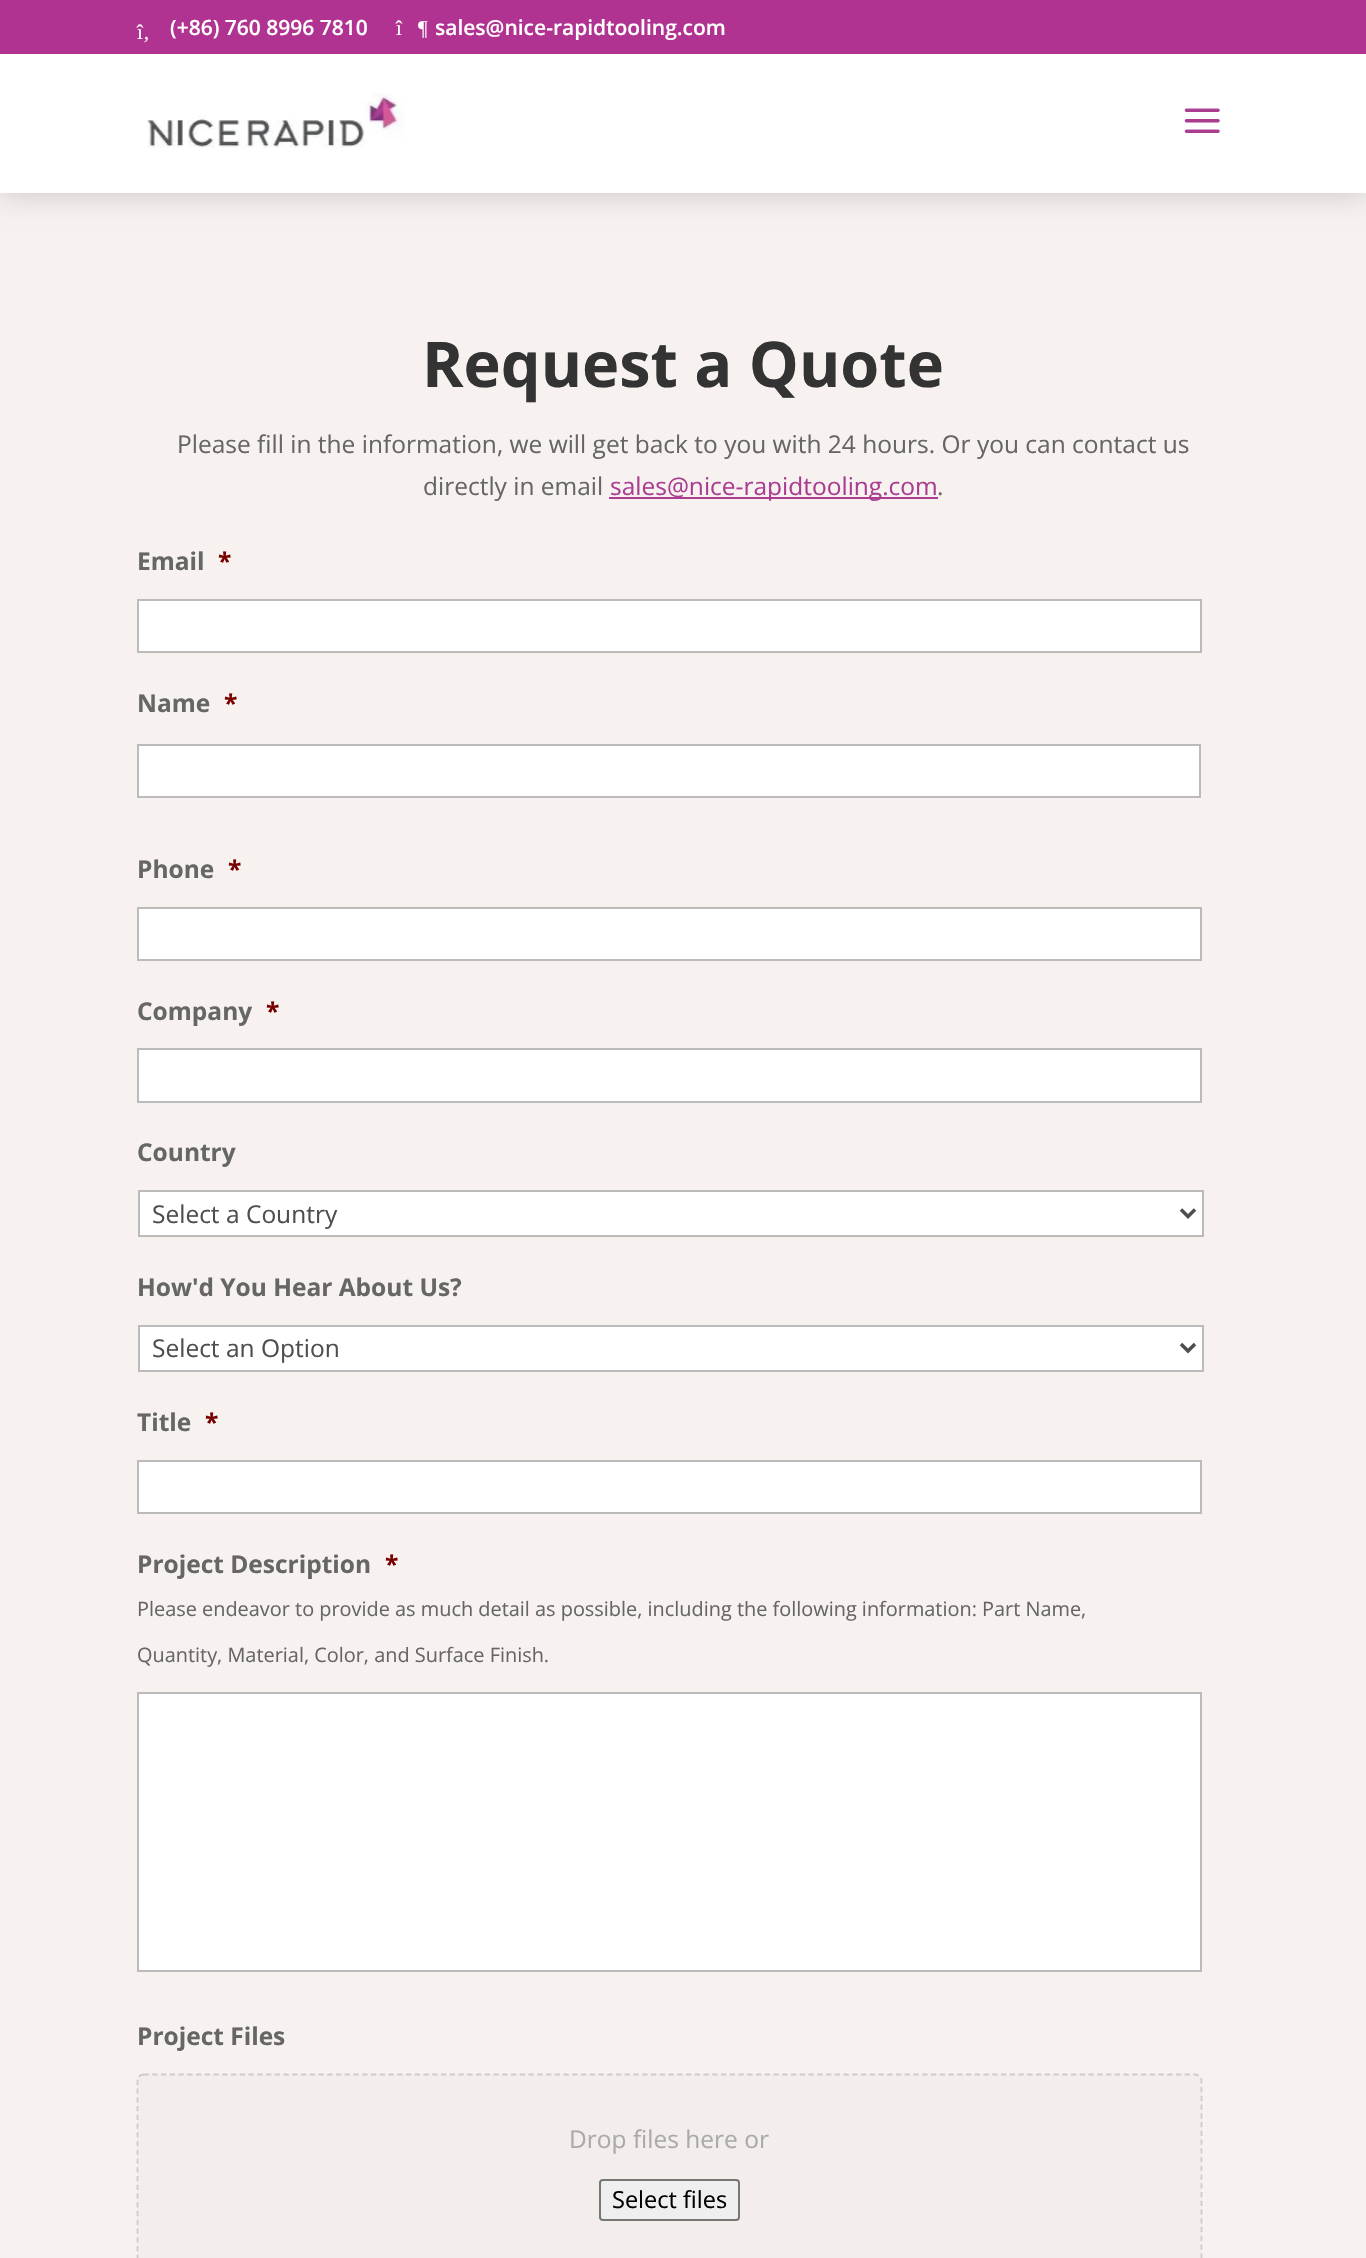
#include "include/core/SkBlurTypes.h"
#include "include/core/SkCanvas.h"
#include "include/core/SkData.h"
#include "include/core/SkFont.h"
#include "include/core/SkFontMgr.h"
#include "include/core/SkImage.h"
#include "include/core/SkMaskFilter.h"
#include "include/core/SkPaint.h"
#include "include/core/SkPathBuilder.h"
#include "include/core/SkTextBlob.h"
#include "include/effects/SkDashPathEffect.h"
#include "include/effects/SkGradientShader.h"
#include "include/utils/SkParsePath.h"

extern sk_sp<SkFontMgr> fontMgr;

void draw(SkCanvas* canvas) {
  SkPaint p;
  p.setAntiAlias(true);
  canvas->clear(SkColorSetRGB(247, 242, 239));
  p.setColor(SkColorSetARGB(41, 0, 0, 0));
  p.setMaskFilter(SkMaskFilter::MakeBlur(kNormal_SkBlurStyle, 13));
  canvas->drawRect(SkRect::MakeLTRB(0, 56, 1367, 196), p);
  p.setMaskFilter(nullptr);
  p.setColor(SK_ColorWHITE);
  canvas->drawRect(SkRect::MakeLTRB(0, 54, 1366, 193), p);
  canvas->drawImageRect(SkImages::DeferredFromEncodedData(SkData::MakeFromFileName("images/1.png")), SkRect::MakeLTRB(147, 92, 404, 148), SkSamplingOptions());
  canvas->drawImageRect(SkImages::DeferredFromEncodedData(SkData::MakeFromFileName("images/2.png")), SkRect::MakeLTRB(1184, 108, 1220, 133), SkSamplingOptions());
  p.setColor(SkColorSetRGB(176, 51, 145));
  canvas->drawRect(SkRect::MakeLTRB(0, 0, 1366, 54), p);
  p.setColor(SkColorSetRGB(171, 61, 145));
  canvas->drawRect(SkRect::MakeLTRB(609, 497, 938, 499), p);
  p.setColor(SK_ColorWHITE);
  canvas->drawRect(SkRect::MakeLTRB(138, 600, 1201, 652), p);
  p.setStyle(SkPaint::kStroke_Style);
  p.setStrokeWidth(2);
  p.setColor(SkColorSetRGB(187, 187, 187));
  canvas->drawRect(SkRect::MakeLTRB(138, 600, 1201, 652), p);
  p.setStyle(SkPaint::kFill_Style);
  p.setColor(SK_ColorWHITE);
  canvas->drawRect(SkRect::MakeLTRB(138, 745, 1200, 797), p);
  p.setStyle(SkPaint::kStroke_Style);
  p.setColor(SkColorSetRGB(187, 187, 187));
  canvas->drawRect(SkRect::MakeLTRB(138, 745, 1200, 797), p);
  p.setStyle(SkPaint::kFill_Style);
  p.setColor(SK_ColorWHITE);
  canvas->drawRect(SkRect::MakeLTRB(138, 908, 1201, 960), p);
  p.setStyle(SkPaint::kStroke_Style);
  p.setColor(SkColorSetRGB(187, 187, 187));
  canvas->drawRect(SkRect::MakeLTRB(138, 908, 1201, 960), p);
  p.setStyle(SkPaint::kFill_Style);
  p.setColor(SK_ColorWHITE);
  canvas->drawRect(SkRect::MakeLTRB(138, 1049, 1201, 1102), p);
  p.setStyle(SkPaint::kStroke_Style);
  p.setColor(SkColorSetRGB(187, 187, 187));
  canvas->drawRect(SkRect::MakeLTRB(138, 1049, 1201, 1102), p);
  p.setStyle(SkPaint::kFill_Style);
  p.setColor(SK_ColorWHITE);
  canvas->drawRect(SkRect::MakeLTRB(139, 1191, 1203, 1236), p);
  p.setStyle(SkPaint::kStroke_Style);
  p.setColor(SkColorSetRGB(187, 187, 187));
  canvas->drawRect(SkRect::MakeLTRB(139, 1191, 1203, 1236), p);
  p.setStrokeWidth(3.5f);
  p.setColor(SkColorSetRGB(78, 78, 78));
  canvas->drawPath(SkPathBuilder().moveTo(1181, 1209.5f).lineTo(1188, 1216.5f).lineTo(1195, 1209.5f).detach(), p);
  p.setStyle(SkPaint::kFill_Style);
  p.setColor(SK_ColorWHITE);
  canvas->drawRect(SkRect::MakeLTRB(139, 1326, 1203, 1371), p);
  p.setStyle(SkPaint::kStroke_Style);
  p.setStrokeWidth(2);
  p.setColor(SkColorSetRGB(187, 187, 187));
  canvas->drawRect(SkRect::MakeLTRB(139, 1326, 1203, 1371), p);
  p.setStrokeWidth(3.5f);
  p.setColor(SkColorSetRGB(78, 78, 78));
  canvas->drawPath(SkPathBuilder().moveTo(1181, 1344).lineTo(1188, 1351).lineTo(1195, 1344).detach(), p);
  p.setStyle(SkPaint::kFill_Style);
  p.setColor(SK_ColorWHITE);
  canvas->drawRect(SkRect::MakeLTRB(138, 1461, 1201, 1513), p);
  p.setStyle(SkPaint::kStroke_Style);
  p.setStrokeWidth(2);
  p.setColor(SkColorSetRGB(187, 187, 187));
  canvas->drawRect(SkRect::MakeLTRB(138, 1461, 1201, 1513), p);
  p.setStyle(SkPaint::kFill_Style);
  p.setColor(SK_ColorWHITE);
  canvas->drawRect(SkRect::MakeLTRB(138, 1693, 1201, 1971), p);
  p.setStyle(SkPaint::kStroke_Style);
  p.setColor(SkColorSetRGB(187, 187, 187));
  canvas->drawRect(SkRect::MakeLTRB(138, 1693, 1201, 1971), p);
  p.setStyle(SkPaint::kFill_Style);
  p.setColor(SkColorSetRGB(243, 237, 235));
  canvas->drawRoundRect(SkRect::MakeLTRB(137, 2074, 1202, 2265), 7, 7, p);
  p.setStyle(SkPaint::kStroke_Style);
  p.setStrokeWidth(1.8f);
  p.setColor(SkColorSetRGB(204, 204, 204));
  p.setPathEffect(SkDashPathEffect::Make({{5.25f, 3.5f}}, 0));
  canvas->drawPath(SkPathBuilder().moveTo(143.5f, 2074.5f).lineTo(1195, 2074.5f).cubicTo(1198.5f, 2074.5f, 1201.5f, 2077.5f, 1201.5f, 2081).lineTo(1201.5f, 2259).cubicTo(1201.5f, 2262.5f, 1198.5f, 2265.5f, 1195, 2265.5f).lineTo(143.5f, 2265.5f).cubicTo(140, 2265.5f, 137.5f, 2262.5f, 137.5f, 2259).lineTo(137.5f, 2081).cubicTo(137.5f, 2077.5f, 140, 2074.5f, 143.5f, 2074.5f).close().detach(), p);
  p.setPathEffect(nullptr);
  p.setStyle(SkPaint::kFill_Style);
  p.setColor(SkColorSetRGB(239, 239, 239));
  canvas->drawRoundRect(SkRect::MakeLTRB(600, 2180, 739, 2220), 3, 3, p);
  p.setStyle(SkPaint::kStroke_Style);
  p.setStrokeWidth(2);
  p.setColor(SkColorSetRGB(118, 118, 118));
  canvas->drawRoundRect(SkRect::MakeLTRB(600, 2180, 739, 2220), 3, 3, p);
  SkFont font1(fontMgr->matchFamilyStyle("Liberation Serif", SkFontStyle::Normal()), 21);
  font1.setSubpixel(true);
  p.setStyle(SkPaint::kFill_Style);
  p.setColor(SK_ColorWHITE);
  canvas->drawString("î‚", 137, 39, font1, p);
  SkFont font2(fontMgr->matchFamilyStyle("Open Sans", SkFontStyle(600, SkFontStyle::kNormal_Width, SkFontStyle::kUpright_Slant)), 21);
  font2.setSubpixel(true);
  canvas->drawString("(+86) 760 8996 7810", 170, 35, font2, p);
  canvas->drawString("î", 396, 35, font1, p);
  canvas->drawString("¶", 418, 35, font1, p);
  canvas->drawString("sales@nice-rapidtooling.com", 435, 35, font2, p);
  SkFont font3(fontMgr->matchFamilyStyle("Open Sans", SkFontStyle::Bold()), 63);
  font3.setSubpixel(true);
  p.setColor(SkColorSetRGB(51, 51, 51));
  canvas->drawString("Request a Quote", 422, 387, font3, p);
  SkFont font4(fontMgr->matchFamilyStyle("Open Sans", SkFontStyle::Normal()), 24.5f);
  font4.setSubpixel(true);
  p.setColor(SkColorSetRGB(102, 102, 102));
  canvas->drawString("Please fill in the information, we will get back to you with 24 hours. Or you can contact us", 177, 453, font4, p);
  canvas->drawString("directly in email", 423, 495, font4, p);
  p.setColor(SkColorSetRGB(171, 61, 145));
  canvas->drawString("sales@nice-rapidtooling.com", 610, 495, font4, p);
  p.setColor(SkColorSetRGB(102, 102, 102));
  canvas->drawString(".", 937, 495, font4, p);
  SkFont font5(fontMgr->matchFamilyStyle("Open Sans", SkFontStyle::Bold()), 24.5f);
  font5.setSubpixel(true);
  canvas->drawString("Email", 137, 570, font5, p);
  p.setColor(SkColorSetRGB(121, 0, 0));
  canvas->drawString("*", 218, 570, font5, p);
  p.setColor(SkColorSetRGB(102, 102, 102));
  canvas->drawString("Name", 137, 712, font5, p);
  p.setColor(SkColorSetRGB(121, 0, 0));
  canvas->drawString("*", 224, 712, font5, p);
  p.setColor(SkColorSetRGB(102, 102, 102));
  canvas->drawString("Phone", 137, 878, font5, p);
  p.setColor(SkColorSetRGB(121, 0, 0));
  canvas->drawString("*", 228, 878, font5, p);
  p.setColor(SkColorSetRGB(102, 102, 102));
  canvas->drawString("Company", 137, 1020, font5, p);
  p.setColor(SkColorSetRGB(121, 0, 0));
  canvas->drawString("*", 266, 1020, font5, p);
  p.setColor(SkColorSetRGB(102, 102, 102));
  canvas->drawString("Country", 137, 1161, font5, p);
  p.setColor(SkColorSetRGB(78, 78, 78));
  canvas->drawString("Select a Country", 152, 1223, font4, p);
  p.setColor(SkColorSetRGB(102, 102, 102));
  canvas->drawString("How'd You Hear About Us?", 137, 1296, font5, p);
  p.setColor(SkColorSetRGB(78, 78, 78));
  canvas->drawString("Select an Option", 152, 1357, font4, p);
  p.setColor(SkColorSetRGB(102, 102, 102));
  canvas->drawString("Title", 137, 1431, font5, p);
  p.setColor(SkColorSetRGB(121, 0, 0));
  canvas->drawString("*", 205, 1431, font5, p);
  p.setColor(SkColorSetRGB(102, 102, 102));
  canvas->drawString("Project Description", 137, 1573, font5, p);
  p.setColor(SkColorSetRGB(121, 0, 0));
  canvas->drawString("*", 385, 1573, font5, p);
  SkFont font6(fontMgr->matchFamilyStyle("Open Sans", SkFontStyle::Normal()), 19.9f);
  font6.setSubpixel(true);
  p.setColor(SkColorSetRGB(102, 102, 102));
  canvas->drawString("Please endeavor to provide as much detail as possible, including the following information: Part Name,", 137, 1616, font6, p);
  canvas->drawString("Quantity, Material, Color, and Surface Finish.", 137, 1662, font6, p);
  canvas->drawString("Project Files", 137, 2045, font5, p);
  p.setColor(SkColorSetRGB(170, 170, 170));
  canvas->drawString("Drop files here or", 569, 2148, font4, p);
  SkFont font7(fontMgr->matchFamilyStyle("Open Sans", SkFontStyle::Normal()), 23.5f);
  font7.setSubpixel(true);
  p.setColor(SK_ColorBLACK);
  canvas->drawString("Select files", 612, 2208, font7, p);
}
